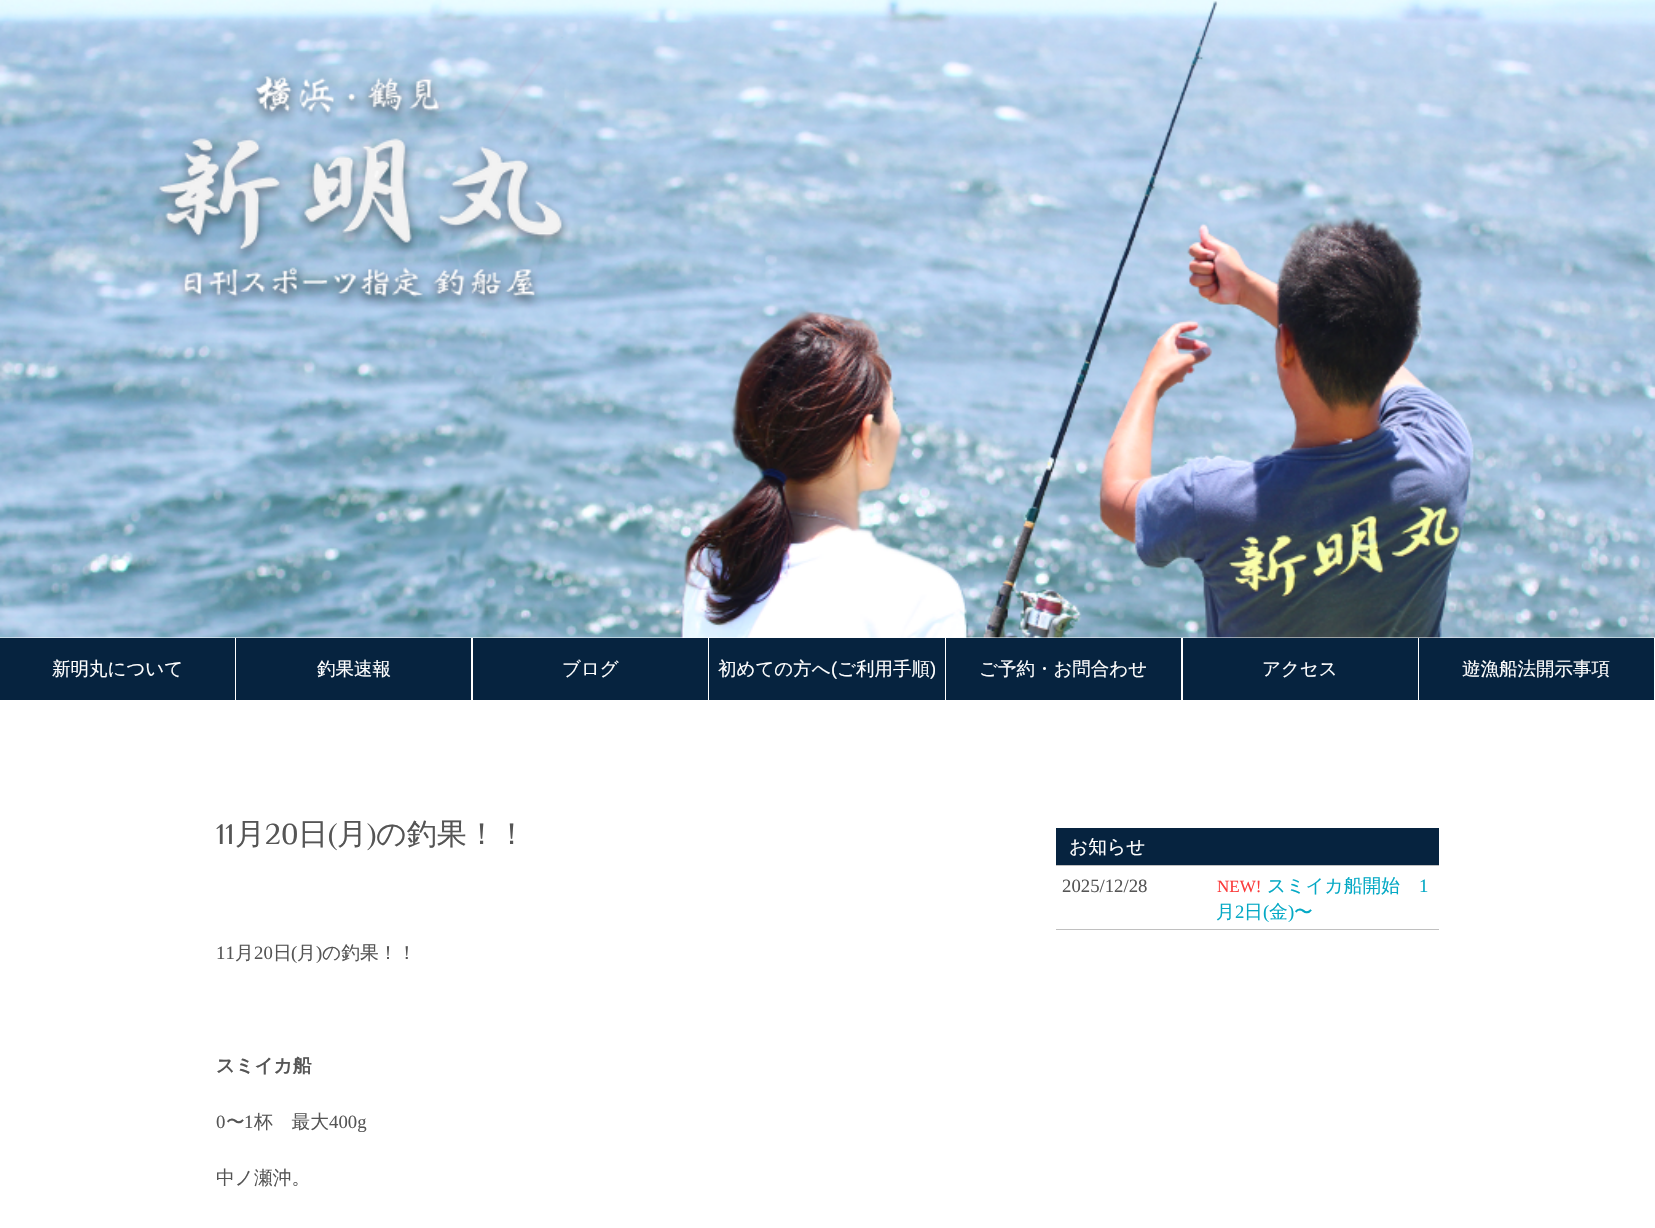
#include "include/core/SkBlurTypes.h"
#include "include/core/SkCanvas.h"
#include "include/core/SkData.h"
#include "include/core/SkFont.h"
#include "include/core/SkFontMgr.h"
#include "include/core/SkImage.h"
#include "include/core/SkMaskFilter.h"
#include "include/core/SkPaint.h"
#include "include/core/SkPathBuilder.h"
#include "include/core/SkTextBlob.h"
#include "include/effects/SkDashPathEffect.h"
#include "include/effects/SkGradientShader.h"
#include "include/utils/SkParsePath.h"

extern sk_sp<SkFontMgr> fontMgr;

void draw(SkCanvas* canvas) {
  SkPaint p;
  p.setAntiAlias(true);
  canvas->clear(SK_ColorWHITE);
  canvas->drawImageRect(SkImages::DeferredFromEncodedData(SkData::MakeFromFileName("images/1.png")), SkRect::MakeLTRB(0, 0, 1655, 638), SkSamplingOptions());
  p.setColor(SkColorSetRGB(6, 35, 63));
  canvas->drawRect(SkRect::MakeLTRB(0, 638, 235, 700), p);
  canvas->drawRect(SkRect::MakeLTRB(236, 638, 471, 700), p);
  canvas->drawRect(SkRect::MakeLTRB(473, 638, 708, 700), p);
  canvas->drawRect(SkRect::MakeLTRB(709, 638, 945, 700), p);
  canvas->drawRect(SkRect::MakeLTRB(946, 638, 1181, 700), p);
  canvas->drawRect(SkRect::MakeLTRB(1183, 638, 1418, 700), p);
  canvas->drawRect(SkRect::MakeLTRB(1419, 638, 1654, 700), p);
  canvas->drawRect(SkRect::MakeLTRB(1056, 828, 1439, 865), p);
  p.setColor(SkColorSetRGB(192, 192, 192));
  canvas->drawRect(SkRect::MakeLTRB(1056, 865, 1439, 866), p);
  canvas->drawRect(SkRect::MakeLTRB(1056, 929, 1439, 930), p);
  SkFont font1(fontMgr->matchFamilyStyle("WenQuanYi Zen Hei", SkFontStyle(500, SkFontStyle::kNormal_Width, SkFontStyle::kUpright_Slant)), 18.5f);
  font1.setSubpixel(true);
  p.setColor(SK_ColorWHITE);
  canvas->drawString("新明丸について", 52, 675, font1, p);
  canvas->drawString("釣果速報", 317, 675, font1, p);
  canvas->drawString("ブログ", 562, 675, font1, p);
  canvas->drawString("初めての方へ", 718, 675, font1, p);
  SkFont font2(fontMgr->matchFamilyStyle("Liberation Sans", SkFontStyle::Normal()), 18.5f);
  font2.setSubpixel(true);
  canvas->drawString("(", 831, 675, font2, p);
  canvas->drawString("ご利用手順", 837, 675, font1, p);
  canvas->drawString(")", 930, 675, font2, p);
  canvas->drawString("ご予約・お問合わせ", 979, 675, font1, p);
  canvas->drawString("アクセス", 1262, 675, font1, p);
  canvas->drawString("遊漁船法開示事項", 1462, 675, font1, p);
  SkFont font3(fontMgr->matchFamilyStyle("WenQuanYi Zen Hei", SkFontStyle(500, SkFontStyle::kNormal_Width, SkFontStyle::kUpright_Slant)), 30);
  font3.setSubpixel(true);
  p.setColor(SkColorSetRGB(85, 85, 85));
  canvas->drawString("月", 235, 844, font3, p);
  SkFont font4(fontMgr->matchFamilyStyle("Philosopher", SkFontStyle::Normal()), 30);
  font4.setSubpixel(true);
  canvas->drawString("20", 265, 844, font4, p);
  canvas->drawString("日 月 の釣果！！", 298, 844, font3, p);
  canvas->drawString("11", 216, 844, font4, p);
  canvas->drawString("(", 328, 844, font4, p);
  canvas->drawString(")", 367, 844, font4, p);
  SkFont font5(fontMgr->matchFamilyStyle("Liberation Serif", SkFontStyle::Normal()), 18.75f);
  font5.setSubpixel(true);
  canvas->drawString("11", 216, 959, font5, p);
  SkFont font6(fontMgr->matchFamilyStyle("WenQuanYi Zen Hei", SkFontStyle(500, SkFontStyle::kNormal_Width, SkFontStyle::kUpright_Slant)), 18.75f);
  font6.setSubpixel(true);
  canvas->drawString("月", 235, 959, font6, p);
  canvas->drawString("20", 254, 959, font5, p);
  canvas->drawString("日", 273, 959, font6, p);
  canvas->drawString("(", 291, 959, font5, p);
  canvas->drawString("月", 297, 959, font6, p);
  canvas->drawString(")", 316, 959, font5, p);
  canvas->drawString("の釣果！！", 322, 959, font6, p);
  SkFont font7(fontMgr->matchFamilyStyle("WenQuanYi Zen Hei", SkFontStyle::Bold()), 18.75f);
  font7.setSubpixel(true);
  canvas->drawString("スミイカ船", 216, 1072, font7, p);
  canvas->drawString("0", 216, 1128, font5, p);
  canvas->drawString("〜", 226, 1128, font6, p);
  canvas->drawString("1", 244, 1128, font5, p);
  canvas->drawString("杯　最大", 254, 1128, font6, p);
  canvas->drawString("400g", 329, 1128, font5, p);
  canvas->drawString("中ノ瀬沖。", 216, 1184, font6, p);
  p.setColor(SK_ColorWHITE);
  canvas->drawString("お知らせ", 1069, 853, font6, p);
  p.setColor(SkColorSetRGB(85, 85, 85));
  canvas->drawString("2025/12/28", 1062, 892, font5, p);
  SkFont font8(fontMgr->matchFamilyStyle("Liberation Serif", SkFontStyle::Normal()), 17);
  font8.setSubpixel(true);
  p.setColor(SkColorSetRGB(251, 60, 60));
  canvas->drawString("NEW!", 1217, 892, font8, p);
  p.setColor(SkColorSetRGB(5, 169, 197));
  canvas->drawString("スミイカ船開始", 1267, 892, font6, p);
  canvas->drawString("1", 1419, 892, font5, p);
  canvas->drawString("月", 1216, 918, font6, p);
  canvas->drawString("2", 1235, 918, font5, p);
  canvas->drawString("日", 1244, 918, font6, p);
  canvas->drawString("(", 1263, 918, font5, p);
  canvas->drawString("金", 1269, 918, font6, p);
  canvas->drawString(")", 1288, 918, font5, p);
  canvas->drawString("〜", 1294, 918, font6, p);
}
